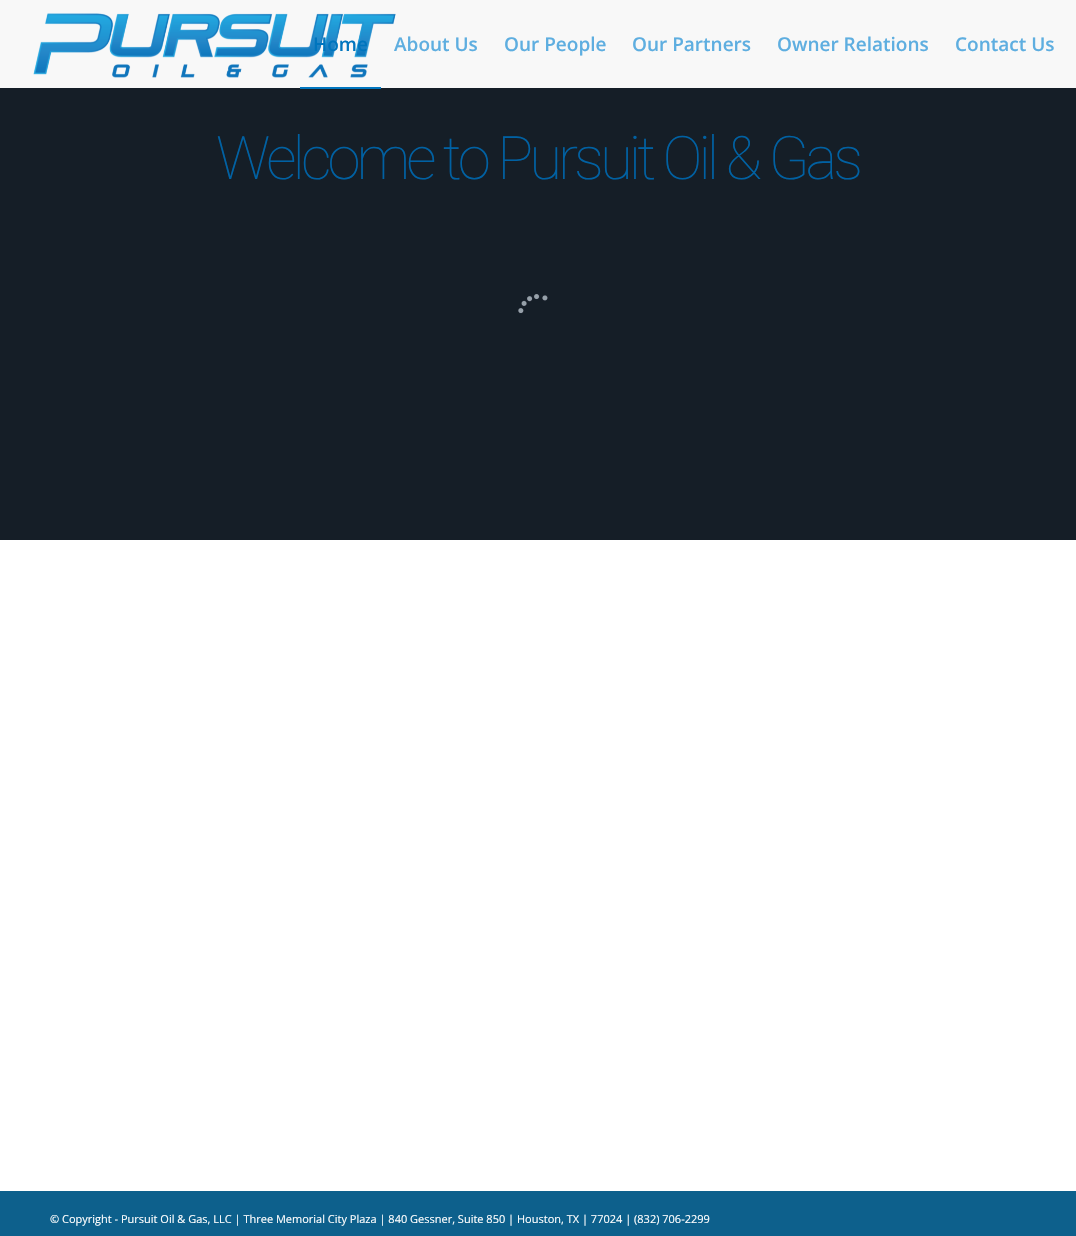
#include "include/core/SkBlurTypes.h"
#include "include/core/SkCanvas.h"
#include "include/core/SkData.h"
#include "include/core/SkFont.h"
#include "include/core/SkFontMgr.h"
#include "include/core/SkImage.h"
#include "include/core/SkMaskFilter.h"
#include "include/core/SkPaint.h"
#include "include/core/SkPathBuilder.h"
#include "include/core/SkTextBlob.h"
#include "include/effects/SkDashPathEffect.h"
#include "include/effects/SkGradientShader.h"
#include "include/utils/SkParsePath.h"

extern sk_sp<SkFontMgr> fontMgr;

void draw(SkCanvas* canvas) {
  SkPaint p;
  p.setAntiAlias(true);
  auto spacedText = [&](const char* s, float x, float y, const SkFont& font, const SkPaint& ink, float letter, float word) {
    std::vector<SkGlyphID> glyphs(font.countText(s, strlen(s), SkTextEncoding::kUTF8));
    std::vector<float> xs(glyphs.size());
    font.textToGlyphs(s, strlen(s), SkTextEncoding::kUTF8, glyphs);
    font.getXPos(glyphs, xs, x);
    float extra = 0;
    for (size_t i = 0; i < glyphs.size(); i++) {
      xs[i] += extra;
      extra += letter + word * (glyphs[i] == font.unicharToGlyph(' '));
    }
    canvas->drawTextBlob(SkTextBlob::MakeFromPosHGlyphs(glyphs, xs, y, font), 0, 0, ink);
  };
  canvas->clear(SK_ColorWHITE);
  p.setColor(SkColorSetRGB(248, 248, 248));
  canvas->drawRect(SkRect::MakeLTRB(0, 0, 1076, 88), p);
  canvas->drawImageRect(SkImages::DeferredFromEncodedData(SkData::MakeFromFileName("images/1.png")), SkRect::MakeLTRB(33, 13, 396, 78), SkSamplingOptions());
  p.setColor(SkColorSetRGB(21, 30, 39));
  canvas->drawRect(SkRect::MakeLTRB(0, 88, 1076, 540), p);
  p.setColor(SkColorSetRGB(0, 117, 190));
  canvas->drawRect(SkRect::MakeLTRB(300, 87, 381, 89), p);
  canvas->drawImageRect(SkImages::DeferredFromEncodedData(SkData::MakeFromFileName("images/2.png")), SkRect::MakeLTRB(518, 294, 548, 314), SkSamplingOptions());
  p.setColor(SkColorSetRGB(13, 96, 140));
  canvas->drawRect(SkRect::MakeLTRB(0, 1191, 1076, 1236), p);
  SkFont font1(fontMgr->matchFamilyStyle("Open Sans", SkFontStyle(600, SkFontStyle::kNormal_Width, SkFontStyle::kUpright_Slant)), 19);
  font1.setSubpixel(true);
  p.setColor(SkColorSetRGB(0, 117, 190));
  canvas->drawString("Home", 313, 51, font1, p);
  p.setColor(SkColorSetRGB(94, 174, 224));
  canvas->drawString("About Us", 394, 51, font1, p);
  canvas->drawString("Our People", 504, 51, font1, p);
  canvas->drawString("Our Partners", 632, 51, font1, p);
  canvas->drawString("Owner Relations", 777, 51, font1, p);
  canvas->drawString("Contact Us", 955, 51, font1, p);
  SkFont font2(fontMgr->matchFamilyStyle("Roboto", SkFontStyle(100, SkFontStyle::kNormal_Width, SkFontStyle::kUpright_Slant)), 60);
  font2.setSubpixel(true);
  p.setColor(SkColorSetRGB(0, 97, 163));
  spacedText("Welcome to Pursuit Oil & Gas", 216, 179, font2, p, -4, 0);
  SkFont font3(fontMgr->matchFamilyStyle("Open Sans", SkFontStyle::Normal()), 11);
  font3.setSubpixel(true);
  p.setColor(SK_ColorWHITE);
  canvas->drawString("© Copyright - Pursuit Oil & Gas, LLC | Three Memorial City Plaza | 840 Gessner, Suite 850 | Houston, TX | 77024 | (832) 706-2299", 50, 1223, font3, p);
}
